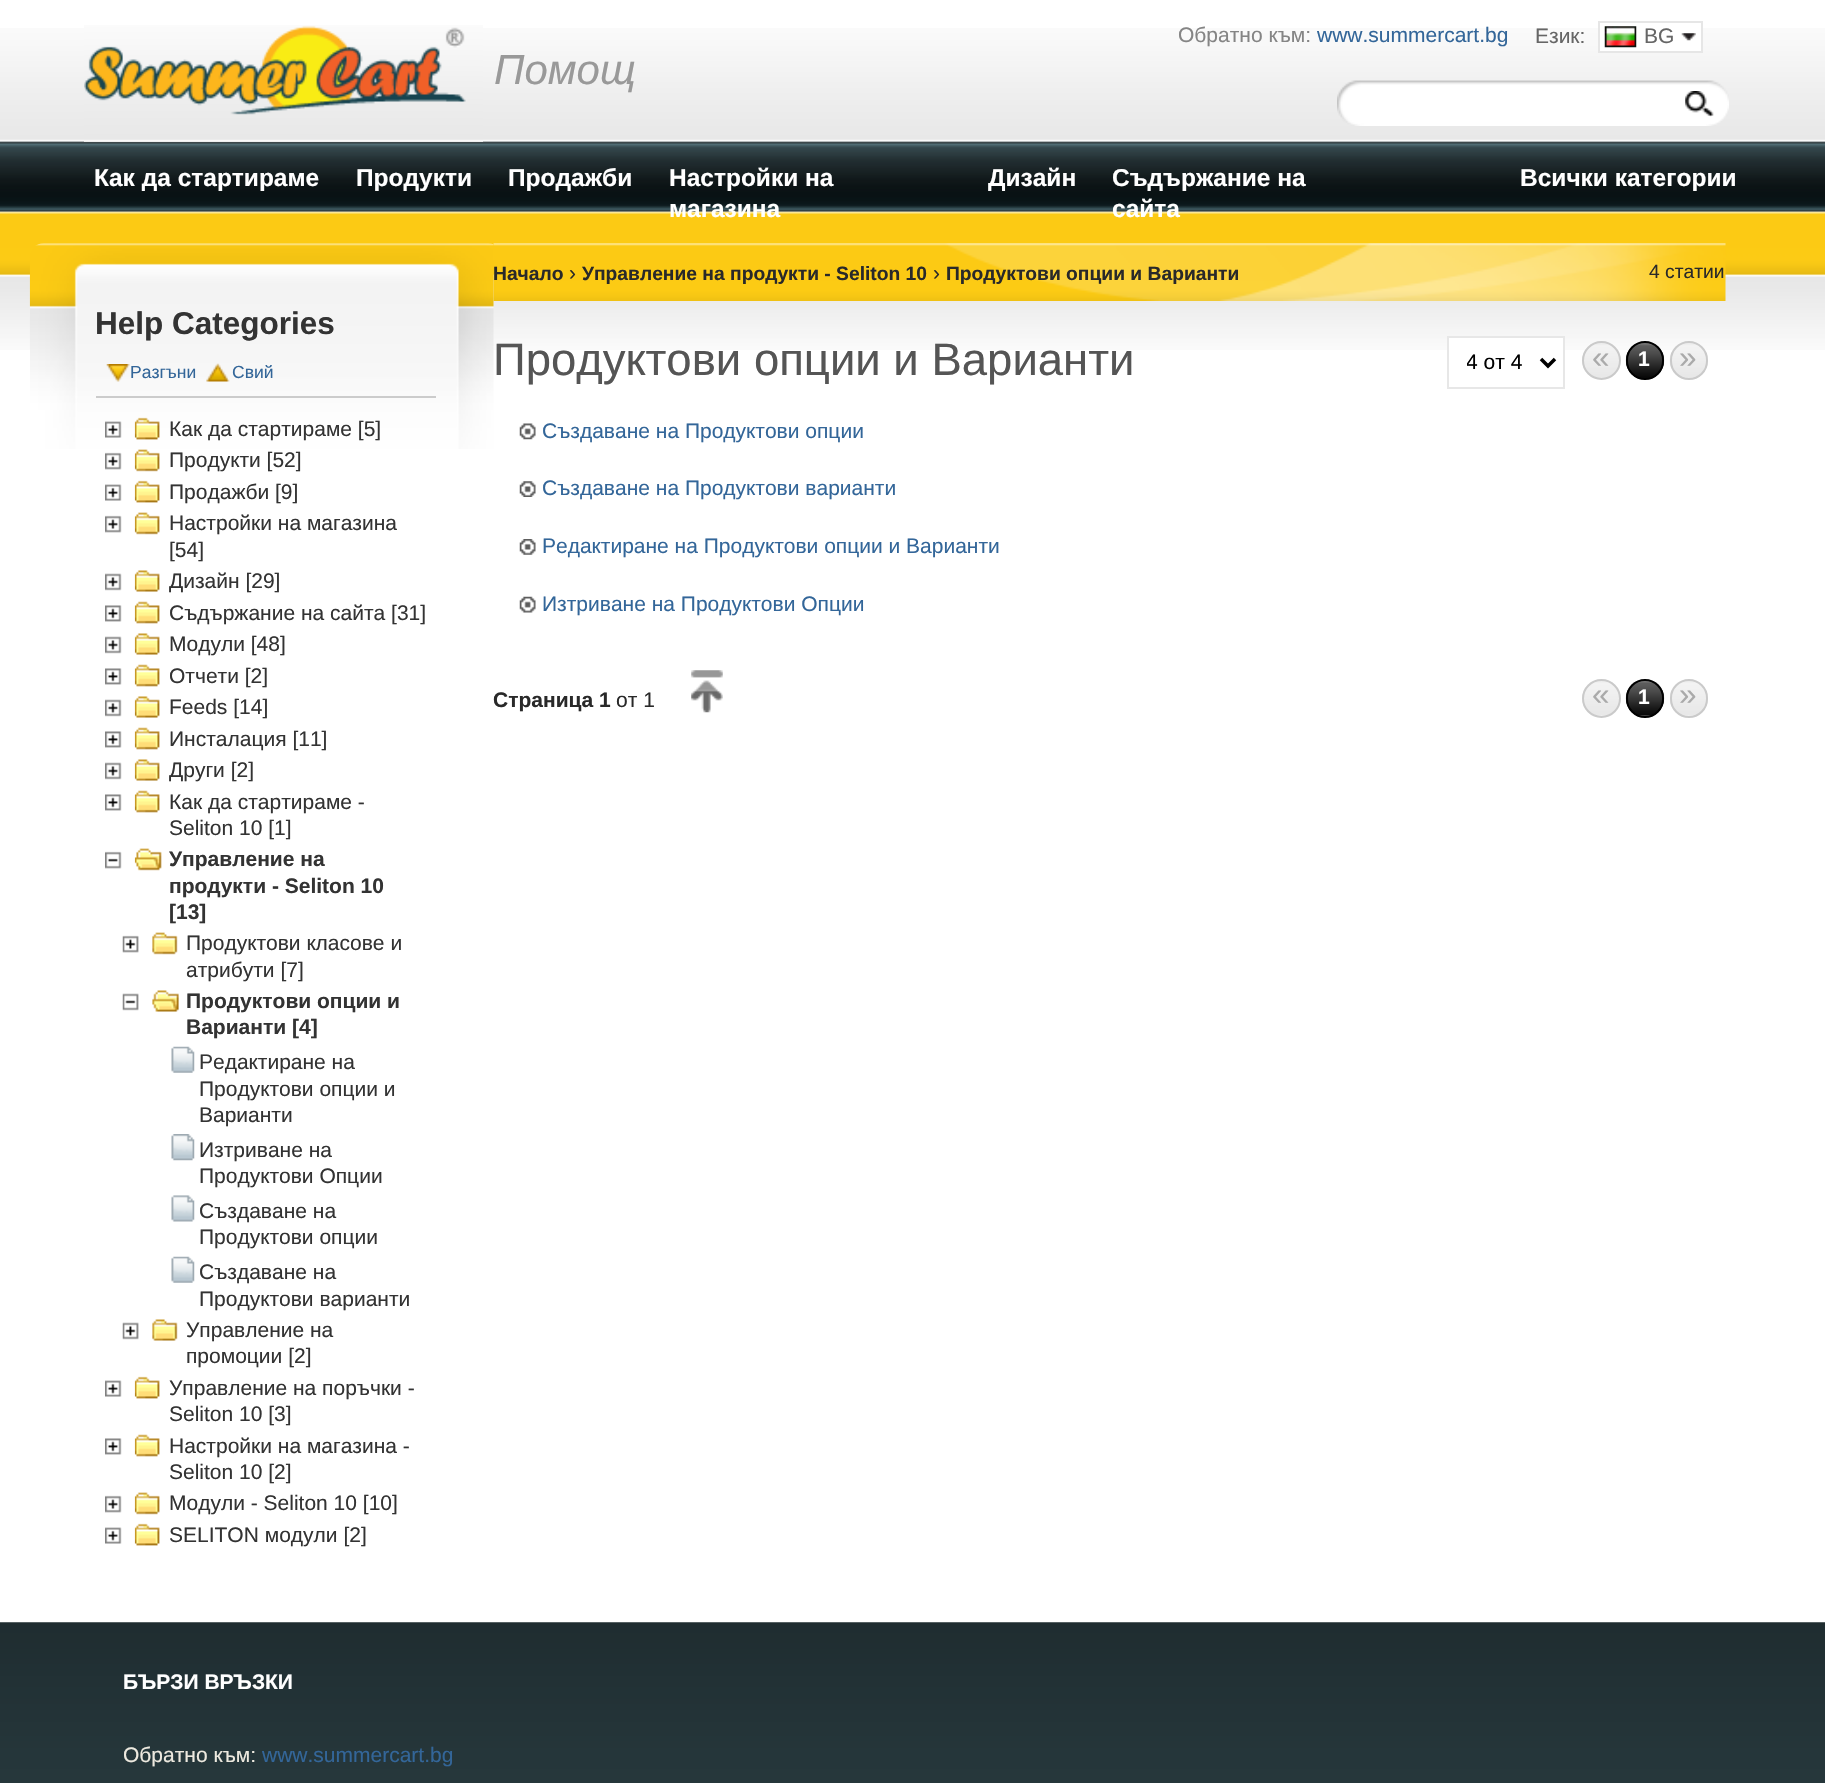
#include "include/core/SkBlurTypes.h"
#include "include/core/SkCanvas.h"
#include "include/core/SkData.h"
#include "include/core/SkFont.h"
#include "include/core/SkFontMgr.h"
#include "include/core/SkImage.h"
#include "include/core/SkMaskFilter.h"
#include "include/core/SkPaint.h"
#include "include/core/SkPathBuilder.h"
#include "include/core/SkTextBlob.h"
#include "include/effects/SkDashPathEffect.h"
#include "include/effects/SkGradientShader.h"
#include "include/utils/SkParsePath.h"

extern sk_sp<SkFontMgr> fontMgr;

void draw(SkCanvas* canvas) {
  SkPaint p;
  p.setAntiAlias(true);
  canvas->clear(SK_ColorWHITE);
  canvas->drawImageRect(SkImages::DeferredFromEncodedData(SkData::MakeFromFileName("images/1.png")), SkRect::MakeLTRB(0, 28, 1825, 212), SkSamplingOptions());
  canvas->drawImageRect(SkImages::DeferredFromEncodedData(SkData::MakeFromFileName("images/2.png")), SkRect::MakeLTRB(0, 211, 1825, 350), SkSamplingOptions());
  canvas->drawImageRect(SkImages::DeferredFromEncodedData(SkData::MakeFromFileName("images/3.png")), SkRect::MakeLTRB(84, 25, 483, 142), SkSamplingOptions());
  p.setColor(SK_ColorWHITE);
  canvas->drawRect(SkRect::MakeLTRB(1600, 28, 1701, 51), p);
  canvas->drawImageRect(SkImages::DeferredFromEncodedData(SkData::MakeFromFileName("images/4.png")), SkRect::MakeLTRB(1681, 33, 1696, 41), SkSamplingOptions());
  p.setStyle(SkPaint::kStroke_Style);
  p.setStrokeWidth(2);
  p.setColor(SkColorSetRGB(230, 230, 230));
  canvas->drawRect(SkRect::MakeLTRB(1599, 22, 1702, 52), p);
  canvas->drawImageRect(SkImages::DeferredFromEncodedData(SkData::MakeFromFileName("images/5.png")), SkRect::MakeLTRB(1604, 26, 1637, 48), SkSamplingOptions());
  canvas->drawImageRect(SkImages::DeferredFromEncodedData(SkData::MakeFromFileName("images/6.png")), SkRect::MakeLTRB(1337, 80, 1729, 126), SkSamplingOptions());
  canvas->drawImageRect(SkImages::DeferredFromEncodedData(SkData::MakeFromFileName("images/7.png")), SkRect::MakeLTRB(1685, 91, 1714, 117), SkSamplingOptions());
  canvas->drawImageRect(SkImages::DeferredFromEncodedData(SkData::MakeFromFileName("images/8.png")), SkRect::MakeLTRB(29, 243, 494, 449), SkSamplingOptions());
  p.setStyle(SkPaint::kFill_Style);
  p.setColor(SkColorSetRGB(204, 204, 204));
  canvas->drawRect(SkRect::MakeLTRB(96, 396, 436, 398), p);
  canvas->drawImageRect(SkImages::DeferredFromEncodedData(SkData::MakeFromFileName("images/9.png")), SkRect::MakeLTRB(106, 364, 130, 382), SkSamplingOptions());
  canvas->drawImageRect(SkImages::DeferredFromEncodedData(SkData::MakeFromFileName("images/10.png")), SkRect::MakeLTRB(206, 363, 230, 382), SkSamplingOptions());
  canvas->drawImageRect(SkImages::DeferredFromEncodedData(SkData::MakeFromFileName("images/11.png")), SkRect::MakeLTRB(105, 421, 122, 438), SkSamplingOptions());
  canvas->drawImageRect(SkImages::DeferredFromEncodedData(SkData::MakeFromFileName("images/12.png")), SkRect::MakeLTRB(134, 417, 160, 440), SkSamplingOptions());
  canvas->drawImageRect(SkImages::DeferredFromEncodedData(SkData::MakeFromFileName("images/13.png")), SkRect::MakeLTRB(105, 452, 122, 470), SkSamplingOptions());
  canvas->drawImageRect(SkImages::DeferredFromEncodedData(SkData::MakeFromFileName("images/14.png")), SkRect::MakeLTRB(134, 449, 160, 472), SkSamplingOptions());
  canvas->drawImageRect(SkImages::DeferredFromEncodedData(SkData::MakeFromFileName("images/15.png")), SkRect::MakeLTRB(105, 484, 122, 501), SkSamplingOptions());
  canvas->drawImageRect(SkImages::DeferredFromEncodedData(SkData::MakeFromFileName("images/16.png")), SkRect::MakeLTRB(134, 480, 160, 503), SkSamplingOptions());
  canvas->drawImageRect(SkImages::DeferredFromEncodedData(SkData::MakeFromFileName("images/13.png")), SkRect::MakeLTRB(105, 515, 122, 533), SkSamplingOptions());
  canvas->drawImageRect(SkImages::DeferredFromEncodedData(SkData::MakeFromFileName("images/14.png")), SkRect::MakeLTRB(134, 512, 160, 535), SkSamplingOptions());
  canvas->drawImageRect(SkImages::DeferredFromEncodedData(SkData::MakeFromFileName("images/17.png")), SkRect::MakeLTRB(105, 573, 122, 591), SkSamplingOptions());
  canvas->drawImageRect(SkImages::DeferredFromEncodedData(SkData::MakeFromFileName("images/18.png")), SkRect::MakeLTRB(134, 570, 160, 592), SkSamplingOptions());
  canvas->drawImageRect(SkImages::DeferredFromEncodedData(SkData::MakeFromFileName("images/19.png")), SkRect::MakeLTRB(105, 605, 122, 622), SkSamplingOptions());
  canvas->drawImageRect(SkImages::DeferredFromEncodedData(SkData::MakeFromFileName("images/20.png")), SkRect::MakeLTRB(134, 601, 160, 624), SkSamplingOptions());
  canvas->drawImageRect(SkImages::DeferredFromEncodedData(SkData::MakeFromFileName("images/17.png")), SkRect::MakeLTRB(105, 636, 122, 654), SkSamplingOptions());
  canvas->drawImageRect(SkImages::DeferredFromEncodedData(SkData::MakeFromFileName("images/18.png")), SkRect::MakeLTRB(134, 633, 160, 655), SkSamplingOptions());
  canvas->drawImageRect(SkImages::DeferredFromEncodedData(SkData::MakeFromFileName("images/19.png")), SkRect::MakeLTRB(105, 668, 122, 685), SkSamplingOptions());
  canvas->drawImageRect(SkImages::DeferredFromEncodedData(SkData::MakeFromFileName("images/20.png")), SkRect::MakeLTRB(134, 664, 160, 687), SkSamplingOptions());
  canvas->drawImageRect(SkImages::DeferredFromEncodedData(SkData::MakeFromFileName("images/17.png")), SkRect::MakeLTRB(105, 699, 122, 717), SkSamplingOptions());
  canvas->drawImageRect(SkImages::DeferredFromEncodedData(SkData::MakeFromFileName("images/18.png")), SkRect::MakeLTRB(134, 696, 160, 718), SkSamplingOptions());
  canvas->drawImageRect(SkImages::DeferredFromEncodedData(SkData::MakeFromFileName("images/19.png")), SkRect::MakeLTRB(105, 731, 122, 748), SkSamplingOptions());
  canvas->drawImageRect(SkImages::DeferredFromEncodedData(SkData::MakeFromFileName("images/20.png")), SkRect::MakeLTRB(134, 727, 160, 750), SkSamplingOptions());
  canvas->drawImageRect(SkImages::DeferredFromEncodedData(SkData::MakeFromFileName("images/17.png")), SkRect::MakeLTRB(105, 762, 122, 780), SkSamplingOptions());
  canvas->drawImageRect(SkImages::DeferredFromEncodedData(SkData::MakeFromFileName("images/18.png")), SkRect::MakeLTRB(134, 759, 160, 781), SkSamplingOptions());
  canvas->drawImageRect(SkImages::DeferredFromEncodedData(SkData::MakeFromFileName("images/19.png")), SkRect::MakeLTRB(105, 794, 122, 811), SkSamplingOptions());
  canvas->drawImageRect(SkImages::DeferredFromEncodedData(SkData::MakeFromFileName("images/20.png")), SkRect::MakeLTRB(134, 790, 160, 813), SkSamplingOptions());
  canvas->drawImageRect(SkImages::DeferredFromEncodedData(SkData::MakeFromFileName("images/21.png")), SkRect::MakeLTRB(105, 851, 122, 869), SkSamplingOptions());
  canvas->drawImageRect(SkImages::DeferredFromEncodedData(SkData::MakeFromFileName("images/22.png")), SkRect::MakeLTRB(134, 848, 162, 871), SkSamplingOptions());
  canvas->drawImageRect(SkImages::DeferredFromEncodedData(SkData::MakeFromFileName("images/23.png")), SkRect::MakeLTRB(122, 935, 139, 953), SkSamplingOptions());
  canvas->drawImageRect(SkImages::DeferredFromEncodedData(SkData::MakeFromFileName("images/24.png")), SkRect::MakeLTRB(152, 932, 178, 955), SkSamplingOptions());
  canvas->drawImageRect(SkImages::DeferredFromEncodedData(SkData::MakeFromFileName("images/25.png")), SkRect::MakeLTRB(122, 993, 139, 1011), SkSamplingOptions());
  canvas->drawImageRect(SkImages::DeferredFromEncodedData(SkData::MakeFromFileName("images/26.png")), SkRect::MakeLTRB(152, 990, 179, 1012), SkSamplingOptions());
  canvas->drawImageRect(SkImages::DeferredFromEncodedData(SkData::MakeFromFileName("images/27.png")), SkRect::MakeLTRB(171, 1046, 195, 1073), SkSamplingOptions());
  canvas->drawImageRect(SkImages::DeferredFromEncodedData(SkData::MakeFromFileName("images/28.png")), SkRect::MakeLTRB(171, 1134, 195, 1161), SkSamplingOptions());
  canvas->drawImageRect(SkImages::DeferredFromEncodedData(SkData::MakeFromFileName("images/29.png")), SkRect::MakeLTRB(171, 1195, 195, 1222), SkSamplingOptions());
  canvas->drawImageRect(SkImages::DeferredFromEncodedData(SkData::MakeFromFileName("images/27.png")), SkRect::MakeLTRB(171, 1256, 195, 1283), SkSamplingOptions());
  canvas->drawImageRect(SkImages::DeferredFromEncodedData(SkData::MakeFromFileName("images/30.png")), SkRect::MakeLTRB(122, 1322, 139, 1340), SkSamplingOptions());
  canvas->drawImageRect(SkImages::DeferredFromEncodedData(SkData::MakeFromFileName("images/31.png")), SkRect::MakeLTRB(152, 1319, 178, 1341), SkSamplingOptions());
  canvas->drawImageRect(SkImages::DeferredFromEncodedData(SkData::MakeFromFileName("images/15.png")), SkRect::MakeLTRB(105, 1380, 122, 1397), SkSamplingOptions());
  canvas->drawImageRect(SkImages::DeferredFromEncodedData(SkData::MakeFromFileName("images/16.png")), SkRect::MakeLTRB(134, 1376, 160, 1399), SkSamplingOptions());
  canvas->drawImageRect(SkImages::DeferredFromEncodedData(SkData::MakeFromFileName("images/19.png")), SkRect::MakeLTRB(105, 1438, 122, 1455), SkSamplingOptions());
  canvas->drawImageRect(SkImages::DeferredFromEncodedData(SkData::MakeFromFileName("images/20.png")), SkRect::MakeLTRB(134, 1434, 160, 1457), SkSamplingOptions());
  canvas->drawImageRect(SkImages::DeferredFromEncodedData(SkData::MakeFromFileName("images/13.png")), SkRect::MakeLTRB(105, 1495, 122, 1513), SkSamplingOptions());
  canvas->drawImageRect(SkImages::DeferredFromEncodedData(SkData::MakeFromFileName("images/14.png")), SkRect::MakeLTRB(134, 1492, 160, 1515), SkSamplingOptions());
  canvas->drawImageRect(SkImages::DeferredFromEncodedData(SkData::MakeFromFileName("images/15.png")), SkRect::MakeLTRB(105, 1527, 122, 1544), SkSamplingOptions());
  canvas->drawImageRect(SkImages::DeferredFromEncodedData(SkData::MakeFromFileName("images/16.png")), SkRect::MakeLTRB(134, 1523, 160, 1546), SkSamplingOptions());
  canvas->drawImageRect(SkImages::DeferredFromEncodedData(SkData::MakeFromFileName("images/32.png")), SkRect::MakeLTRB(493, 243, 1726, 301), SkSamplingOptions());
  p.setColor(SK_ColorWHITE);
  canvas->drawRect(SkRect::MakeLTRB(1449, 338, 1563, 350), p);
  p.setStyle(SkPaint::kStroke_Style);
  p.setColor(SkColorSetRGB(231, 231, 231));
  canvas->drawRect(SkRect::MakeLTRB(1448, 337, 1564, 388), p);
  p.setStrokeWidth(3.5f);
  p.setColor(SK_ColorBLACK);
  canvas->drawPath(SkPathBuilder().moveTo(1541, 359).lineTo(1548, 366).lineTo(1555, 359).detach(), p);
  canvas->drawImageRect(SkImages::DeferredFromEncodedData(SkData::MakeFromFileName("images/33.png")), SkRect::MakeLTRB(1582, 343, 1621, 378), SkSamplingOptions());
  p.setStrokeWidth(2);
  p.setColor(SkColorSetRGB(202, 202, 202));
  canvas->drawCircle(1601.5f, 360.5f, 18.5f, p);
  canvas->drawImageRect(SkImages::DeferredFromEncodedData(SkData::MakeFromFileName("images/34.png")), SkRect::MakeLTRB(1625, 343, 1665, 378), SkSamplingOptions());
  p.setColor(SK_ColorBLACK);
  canvas->drawRoundRect(SkRect::MakeLTRB(1627, 342, 1663, 379), 18, 18, p);
  canvas->drawImageRect(SkImages::DeferredFromEncodedData(SkData::MakeFromFileName("images/35.png")), SkRect::MakeLTRB(1669, 343, 1708, 378), SkSamplingOptions());
  p.setColor(SkColorSetRGB(202, 202, 202));
  canvas->drawRoundRect(SkRect::MakeLTRB(1671, 342, 1707, 379), 18, 18, p);
  canvas->drawImageRect(SkImages::DeferredFromEncodedData(SkData::MakeFromFileName("images/36.png")), SkRect::MakeLTRB(519, 423, 536, 440), SkSamplingOptions());
  canvas->drawImageRect(SkImages::DeferredFromEncodedData(SkData::MakeFromFileName("images/37.png")), SkRect::MakeLTRB(519, 481, 536, 497), SkSamplingOptions());
  canvas->drawImageRect(SkImages::DeferredFromEncodedData(SkData::MakeFromFileName("images/38.png")), SkRect::MakeLTRB(519, 539, 536, 555), SkSamplingOptions());
  canvas->drawImageRect(SkImages::DeferredFromEncodedData(SkData::MakeFromFileName("images/39.png")), SkRect::MakeLTRB(519, 596, 536, 613), SkSamplingOptions());
  canvas->drawImageRect(SkImages::DeferredFromEncodedData(SkData::MakeFromFileName("images/40.png")), SkRect::MakeLTRB(691, 670, 723, 713), SkSamplingOptions());
  canvas->drawImageRect(SkImages::DeferredFromEncodedData(SkData::MakeFromFileName("images/41.png")), SkRect::MakeLTRB(1582, 680, 1621, 716), SkSamplingOptions());
  canvas->drawCircle(1601.5f, 698.5f, 18.5f, p);
  canvas->drawImageRect(SkImages::DeferredFromEncodedData(SkData::MakeFromFileName("images/42.png")), SkRect::MakeLTRB(1625, 680, 1665, 716), SkSamplingOptions());
  p.setColor(SK_ColorBLACK);
  canvas->drawRoundRect(SkRect::MakeLTRB(1627, 680, 1663, 717), 18, 18, p);
  canvas->drawImageRect(SkImages::DeferredFromEncodedData(SkData::MakeFromFileName("images/43.png")), SkRect::MakeLTRB(1670, 680, 1708, 716), SkSamplingOptions());
  p.setColor(SkColorSetRGB(202, 202, 202));
  canvas->drawRoundRect(SkRect::MakeLTRB(1671, 680, 1707, 717), 18, 18, p);
  canvas->drawImageRect(SkImages::DeferredFromEncodedData(SkData::MakeFromFileName("images/44.png")), SkRect::MakeLTRB(0, 1622, 1825, 1783), SkSamplingOptions());
  SkFont font1(fontMgr->matchFamilyStyle("Liberation Sans", SkFontStyle::Normal()), 21);
  font1.setSubpixel(true);
  p.setStyle(SkPaint::kFill_Style);
  p.setColor(SkColorSetRGB(133, 133, 133));
  canvas->drawString("Обратно към:", 1178, 42, font1, p);
  p.setColor(SkColorSetRGB(51, 102, 153));
  canvas->drawString("www.summercart.bg", 1317, 42, font1, p);
  p.setColor(SkColorSetRGB(102, 102, 102));
  canvas->drawString("Език:", 1535, 43, font1, p);
  canvas->drawString("BG", 1644, 43, font1, p);
  SkFont font2(fontMgr->matchFamilyStyle("Liberation Sans", SkFontStyle::Italic()), 42);
  font2.setSubpixel(true);
  p.setColor(SkColorSetRGB(153, 153, 153));
  canvas->drawString("Помощ", 494, 84, font2, p);
  SkFont font3(fontMgr->matchFamilyStyle("Liberation Sans", SkFontStyle::Bold()), 24.5f);
  font3.setSubpixel(true);
  p.setColor(SK_ColorWHITE);
  canvas->drawString("Как да стартираме", 94, 186, font3, p);
  canvas->drawString("Продукти", 356, 186, font3, p);
  canvas->drawString("Продажби", 508, 186, font3, p);
  canvas->drawString("Настройки на", 669, 186, font3, p);
  canvas->drawString("магазина", 669, 217, font3, p);
  canvas->drawString("Дизайн", 988, 186, font3, p);
  canvas->drawString("Съдържание на", 1112, 186, font3, p);
  canvas->drawString("сайта", 1112, 217, font3, p);
  canvas->drawString("Всички категории", 1520, 186, font3, p);
  SkFont font4(fontMgr->matchFamilyStyle("Liberation Sans", SkFontStyle::Bold()), 31.5f);
  font4.setSubpixel(true);
  p.setColor(SkColorSetRGB(51, 51, 51));
  canvas->drawString("Help Categories", 95, 334, font4, p);
  SkFont font5(fontMgr->matchFamilyStyle("Liberation Sans", SkFontStyle::Normal()), 17.5f);
  font5.setSubpixel(true);
  p.setColor(SkColorSetRGB(51, 102, 153));
  canvas->drawString("Разгъни", 130, 378, font5, p);
  canvas->drawString("Свий", 232, 378, font5, p);
  p.setColor(SkColorSetRGB(51, 51, 51));
  canvas->drawString("Как да стартираме [5]", 169, 436, font1, p);
  canvas->drawString("Продукти [52]", 169, 467, font1, p);
  canvas->drawString("Продажби [9]", 169, 499, font1, p);
  canvas->drawString("Настройки на магазина", 169, 530, font1, p);
  canvas->drawString("[54]", 169, 557, font1, p);
  canvas->drawString("Дизайн [29]", 169, 588, font1, p);
  canvas->drawString("Съдържание на сайта [31]", 169, 620, font1, p);
  canvas->drawString("Модули [48]", 169, 651, font1, p);
  canvas->drawString("Отчети [2]", 169, 683, font1, p);
  canvas->drawString("Feeds [14]", 169, 714, font1, p);
  canvas->drawString("Инсталация [11]", 169, 746, font1, p);
  canvas->drawString("Други [2]", 169, 777, font1, p);
  canvas->drawString("Как да стартираме -", 169, 809, font1, p);
  canvas->drawString("Seliton 10 [1]", 169, 835, font1, p);
  SkFont font6(fontMgr->matchFamilyStyle("Liberation Sans", SkFontStyle::Bold()), 21);
  font6.setSubpixel(true);
  canvas->drawString("Управление на", 169, 866, font6, p);
  canvas->drawString("продукти - Seliton 10", 169, 893, font6, p);
  canvas->drawString("[13]", 169, 919, font6, p);
  canvas->drawString("Продуктови класове и", 186, 950, font1, p);
  canvas->drawString("атрибути [7]", 186, 977, font1, p);
  canvas->drawString("Продуктови опции и", 186, 1008, font6, p);
  canvas->drawString("Варианти [4]", 186, 1034, font6, p);
  canvas->drawString("Редактиране на", 199, 1069, font1, p);
  canvas->drawString("Продуктови опции и", 199, 1096, font1, p);
  canvas->drawString("Варианти", 199, 1122, font1, p);
  canvas->drawString("Изтриване на", 199, 1157, font1, p);
  canvas->drawString("Продуктови Опции", 199, 1183, font1, p);
  canvas->drawString("Създаване на", 199, 1218, font1, p);
  canvas->drawString("Продуктови опции", 199, 1244, font1, p);
  canvas->drawString("Създаване на", 199, 1279, font1, p);
  canvas->drawString("Продуктови варианти", 199, 1306, font1, p);
  canvas->drawString("Управление на", 186, 1337, font1, p);
  canvas->drawString("промоции [2]", 186, 1363, font1, p);
  canvas->drawString("Управление на поръчки -", 169, 1395, font1, p);
  canvas->drawString("Seliton 10 [3]", 169, 1421, font1, p);
  canvas->drawString("Настройки на магазина -", 169, 1453, font1, p);
  canvas->drawString("Seliton 10 [2]", 169, 1479, font1, p);
  canvas->drawString("Модули - Seliton 10 [10]", 169, 1510, font1, p);
  canvas->drawString("SELITON модули [2]", 169, 1542, font1, p);
  SkFont font7(fontMgr->matchFamilyStyle("Liberation Sans", SkFontStyle::Bold()), 19.25f);
  font7.setSubpixel(true);
  p.setColor(SkColorSetRGB(41, 41, 41));
  canvas->drawString("Начало", 493, 280, font7, p);
  canvas->drawString("›", 569, 280, font1, p);
  canvas->drawString("Управление на продукти - Seliton 10", 582, 280, font7, p);
  canvas->drawString("›", 933, 280, font1, p);
  canvas->drawString("Продуктови опции и Варианти", 946, 280, font7, p);
  SkFont font8(fontMgr->matchFamilyStyle("Liberation Sans", SkFontStyle::Normal()), 19.25f);
  font8.setSubpixel(true);
  canvas->drawString("4 статии", 1649, 278, font8, p);
  SkFont font9(fontMgr->matchFamilyStyle("Liberation Sans", SkFontStyle::Normal()), 45.5f);
  font9.setSubpixel(true);
  p.setColor(SkColorSetRGB(85, 85, 85));
  canvas->drawString("Продуктови опции и Варианти", 493, 375, font9, p);
  canvas->save();
  canvas->clipRect(SkRect::MakeLTRB(1467, 348, 1524, 376));
  p.setColor(SK_ColorBLACK);
  canvas->drawString("4 от 4", 1466, 369, font1, p);
  canvas->restore();
  SkFont font10(fontMgr->matchFamilyStyle("Liberation Sans", SkFontStyle::Normal()), 31.5f);
  font10.setSubpixel(true);
  p.setColor(SkColorSetRGB(170, 170, 170));
  canvas->drawString("«", 1592, 368, font10, p);
  p.setColor(SK_ColorWHITE);
  canvas->drawString("1", 1638, 366, font6, p);
  p.setColor(SkColorSetRGB(170, 170, 170));
  canvas->drawString("»", 1679, 368, font10, p);
  p.setColor(SkColorSetRGB(51, 102, 153));
  canvas->drawString("Създаване на Продуктови опции", 542, 438, font1, p);
  canvas->drawString("Създаване на Продуктови варианти", 542, 495, font1, p);
  canvas->drawString("Редактиране на Продуктови опции и Варианти", 542, 553, font1, p);
  canvas->drawString("Изтриване на Продуктови Опции", 542, 611, font1, p);
  p.setColor(SkColorSetRGB(41, 41, 41));
  canvas->drawString("Страница 1", 493, 707, font6, p);
  canvas->drawString("от 1", 616, 707, font1, p);
  p.setColor(SkColorSetRGB(170, 170, 170));
  canvas->drawString("«", 1592, 705, font10, p);
  p.setColor(SK_ColorWHITE);
  canvas->drawString("1", 1638, 704, font6, p);
  p.setColor(SkColorSetRGB(170, 170, 170));
  canvas->drawString("»", 1679, 705, font10, p);
  p.setColor(SK_ColorWHITE);
  canvas->drawString("БЪРЗИ ВРЪЗКИ", 123, 1689, font6, p);
  p.setColor(SkColorSetRGB(237, 233, 223));
  canvas->drawString("Обратно към:", 123, 1762, font1, p);
  p.setColor(SkColorSetRGB(51, 102, 153));
  canvas->drawString("www.summercart.bg", 262, 1762, font1, p);
}
